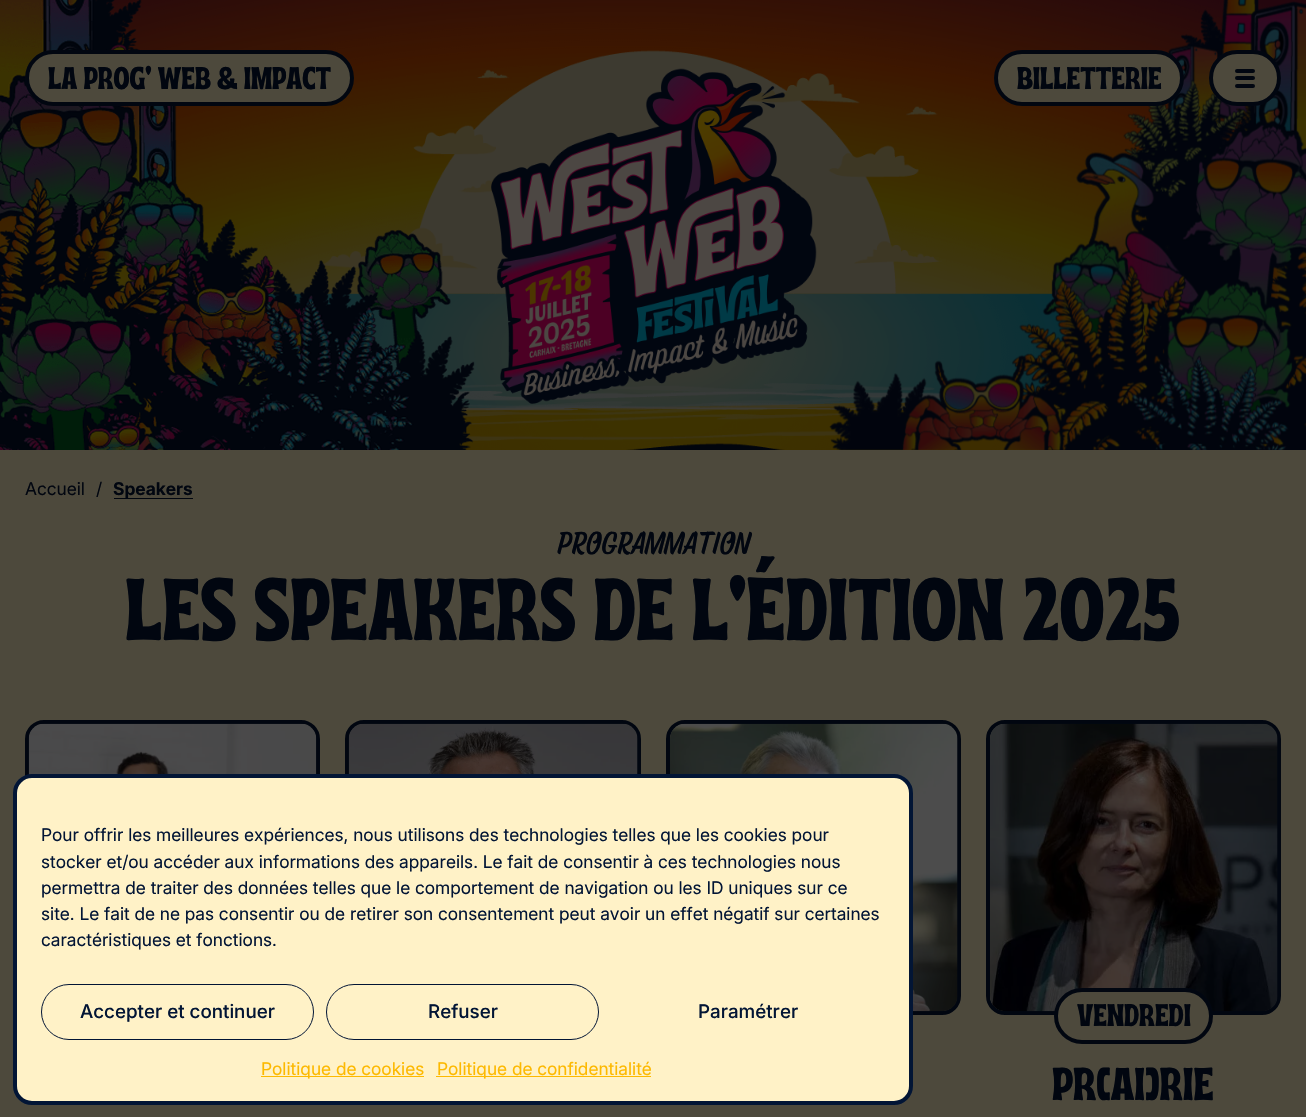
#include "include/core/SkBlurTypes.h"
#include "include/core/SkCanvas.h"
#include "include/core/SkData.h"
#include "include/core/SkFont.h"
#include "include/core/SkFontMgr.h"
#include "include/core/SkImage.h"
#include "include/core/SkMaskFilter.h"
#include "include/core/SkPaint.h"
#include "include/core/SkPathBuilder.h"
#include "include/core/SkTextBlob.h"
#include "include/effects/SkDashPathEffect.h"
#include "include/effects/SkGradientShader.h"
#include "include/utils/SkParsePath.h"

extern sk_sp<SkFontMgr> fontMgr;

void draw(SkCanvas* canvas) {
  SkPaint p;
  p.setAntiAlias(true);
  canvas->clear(SkColorSetRGB(77, 73, 60));
  canvas->drawImageRect(SkImages::DeferredFromEncodedData(SkData::MakeFromFileName("images/1.png")), SkRect::MakeLTRB(0, 0, 1306, 450), SkSamplingOptions());
  canvas->drawImageRect(SkImages::DeferredFromEncodedData(SkData::MakeFromFileName("images/2.png")), SkRect::MakeLTRB(0, 0, 475, 450), SkSamplingOptions());
  canvas->drawImageRect(SkImages::DeferredFromEncodedData(SkData::MakeFromFileName("images/3.png")), SkRect::MakeLTRB(829, 0, 1306, 450), SkSamplingOptions());
  p.setColor(SkColorSetRGB(77, 73, 60));
  canvas->drawRoundRect(SkRect::MakeLTRB(27, 52, 352, 104), 26, 26, p);
  p.setStyle(SkPaint::kStroke_Style);
  p.setStrokeWidth(4);
  p.setColor(SkColorSetRGB(1, 6, 16));
  canvas->drawRoundRect(SkRect::MakeLTRB(27, 52, 352, 104), 26, 26, p);
  p.setStyle(SkPaint::kFill_Style);
  p.setColor(SkColorSetRGB(77, 73, 60));
  canvas->drawRoundRect(SkRect::MakeLTRB(996, 52, 1182, 104), 26, 26, p);
  p.setStyle(SkPaint::kStroke_Style);
  p.setColor(SkColorSetRGB(1, 6, 16));
  canvas->drawRoundRect(SkRect::MakeLTRB(996, 52, 1182, 104), 26, 26, p);
  p.setStyle(SkPaint::kFill_Style);
  p.setColor(SkColorSetRGB(77, 73, 60));
  canvas->drawRoundRect(SkRect::MakeLTRB(1211, 52, 1279, 104), 26, 26, p);
  p.setStyle(SkPaint::kStroke_Style);
  p.setColor(SkColorSetRGB(1, 6, 16));
  canvas->drawRoundRect(SkRect::MakeLTRB(1211, 52, 1279, 104), 26, 26, p);
  p.setStyle(SkPaint::kFill_Style);
  canvas->drawRoundRect(SkRect::MakeLTRB(1235, 69, 1255, 73), 2, 2, p);
  canvas->drawRoundRect(SkRect::MakeLTRB(1235, 76, 1255, 80), 2, 2, p);
  canvas->drawRoundRect(SkRect::MakeLTRB(1235, 84, 1255, 88), 2, 2, p);
  canvas->drawImageRect(SkImages::DeferredFromEncodedData(SkData::MakeFromFileName("images/4.png")), SkRect::MakeLTRB(491, 68, 817, 404), SkSamplingOptions());
  canvas->drawRect(SkRect::MakeLTRB(114, 498, 193, 499), p);
  p.setStyle(SkPaint::kStroke_Style);
  canvas->drawRoundRect(SkRect::MakeLTRB(27, 722, 318, 1013), 17, 17, p);
  canvas->drawImageRect(SkImages::DeferredFromEncodedData(SkData::MakeFromFileName("images/5.png")), SkRect::MakeLTRB(28, 723, 317, 775), SkSamplingOptions());
  canvas->drawRoundRect(SkRect::MakeLTRB(347, 722, 639, 1013), 17, 17, p);
  canvas->drawRoundRect(SkRect::MakeLTRB(668, 722, 959, 1013), 17, 17, p);
  canvas->drawImageRect(SkImages::DeferredFromEncodedData(SkData::MakeFromFileName("images/7.png")), SkRect::MakeLTRB(670, 723, 958, 1012), SkSamplingOptions());
  p.setStyle(SkPaint::kFill_Style);
  p.setColor(SkColorSetRGB(255, 242, 199));
  canvas->drawRoundRect(SkRect::MakeLTRB(15, 776, 911, 1103), 17, 17, p);
  p.setStyle(SkPaint::kStroke_Style);
  p.setColor(SkColorSetRGB(2, 21, 53));
  canvas->drawRoundRect(SkRect::MakeLTRB(15, 776, 911, 1103), 17, 17, p);
  p.setStrokeWidth(1);
  canvas->drawRoundRect(SkRect::MakeLTRB(41.5f, 984.5f, 313.5f, 1039.5f), 27.5f, 27.5f, p);
  canvas->drawRoundRect(SkRect::MakeLTRB(326.5f, 984.5f, 598.5f, 1039.5f), 27.5f, 27.5f, p);
  p.setStyle(SkPaint::kFill_Style);
  p.setColor(SkColorSetRGB(253, 185, 0));
  canvas->drawRect(SkRect::MakeLTRB(261, 1076, 424, 1077), p);
  canvas->drawRect(SkRect::MakeLTRB(436, 1076, 651, 1077), p);
  canvas->drawImageRect(SkImages::DeferredFromEncodedData(SkData::MakeFromFileName("images/6.png")), SkRect::MakeLTRB(348, 723, 638, 774), SkSamplingOptions());
  p.setStyle(SkPaint::kStroke_Style);
  p.setStrokeWidth(4);
  p.setColor(SkColorSetRGB(1, 6, 16));
  canvas->drawRoundRect(SkRect::MakeLTRB(988, 722, 1279, 1013), 17, 17, p);
  canvas->drawImageRect(SkImages::DeferredFromEncodedData(SkData::MakeFromFileName("images/8.png")), SkRect::MakeLTRB(990, 723, 1278, 1012), SkSamplingOptions());
  p.setStyle(SkPaint::kFill_Style);
  p.setColor(SkColorSetRGB(77, 73, 60));
  canvas->drawRoundRect(SkRect::MakeLTRB(1056, 990, 1211, 1042), 26, 26, p);
  p.setStyle(SkPaint::kStroke_Style);
  p.setColor(SkColorSetRGB(1, 6, 16));
  canvas->drawRoundRect(SkRect::MakeLTRB(1056, 990, 1211, 1042), 26, 26, p);
  SkFont font1(fontMgr->matchFamilyStyle("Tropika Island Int", SkFontStyle::Normal()), 31.25f);
  font1.setSubpixel(true);
  p.setStyle(SkPaint::kFill_Style);
  canvas->drawString("LA PROG’ WEB & IMPACT", 48, 89, font1, p);
  canvas->drawString("BILLETTERIE", 1017, 89, font1, p);
  SkFont font2(fontMgr->matchFamilyStyle("Inter", SkFontStyle::Normal()), 17.5f);
  font2.setSubpixel(true);
  canvas->drawString("Accueil", 25, 495, font2, p);
  canvas->drawString("/", 96, 495, font2, p);
  SkFont font3(fontMgr->matchFamilyStyle("Inter", SkFontStyle::Bold()), 17.5f);
  font3.setSubpixel(true);
  canvas->drawString("Speakers", 113, 495, font3, p);
  SkFont font4(fontMgr->matchFamilyStyle("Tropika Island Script", SkFontStyle::Normal()), 31.25f);
  font4.setSubpixel(true);
  canvas->drawString("PROGRAMMATION", 557, 554, font4, p);
  SkFont font5(fontMgr->matchFamilyStyle("Tropika Island Int", SkFontStyle::Normal()), 87.5f);
  font5.setSubpixel(true);
  canvas->drawString("LES SPEAKERS DE L'ÉDITION 2025", 125, 640, font5, p);
  p.setColor(SkColorSetRGB(2, 21, 53));
  canvas->drawString("Pour offrir les meilleures expériences, nous utilisons des technologies telles que les cookies pour", 41, 841, font2, p);
  canvas->drawString("stocker et/ou accéder aux informations des appareils. Le fait de consentir à ces technologies nous", 41, 868, font2, p);
  canvas->drawString("permettra de traiter des données telles que le comportement de navigation ou les ID uniques sur ce", 41, 894, font2, p);
  canvas->drawString("site. Le fait de ne pas consentir ou de retirer son consentement peut avoir un effet négatif sur certaines", 41, 920, font2, p);
  canvas->drawString("caractéristiques et fonctions.", 41, 946, font2, p);
  SkFont font6(fontMgr->matchFamilyStyle("Inter", SkFontStyle(500, SkFontStyle::kNormal_Width, SkFontStyle::kUpright_Slant)), 18.75f);
  font6.setSubpixel(true);
  canvas->drawString("Accepter et continuer", 80, 1018, font6, p);
  canvas->drawString("Refuser", 428, 1018, font6, p);
  canvas->drawString("Paramétrer", 698, 1018, font6, p);
  p.setColor(SkColorSetRGB(253, 185, 0));
  canvas->drawString("Politique de cookies", 261, 1075, font2, p);
  canvas->drawString("Politique de confidentialité", 437, 1075, font2, p);
  p.setColor(SkColorSetRGB(1, 6, 16));
  canvas->drawString("VENDREDI", 1077, 1026, font1, p);
  SkFont font7(fontMgr->matchFamilyStyle("Tropika Island Int", SkFontStyle::Normal()), 46);
  font7.setSubpixel(true);
  canvas->drawString("PR[AI]RIE", 1052, 1100, font7, p);
}
